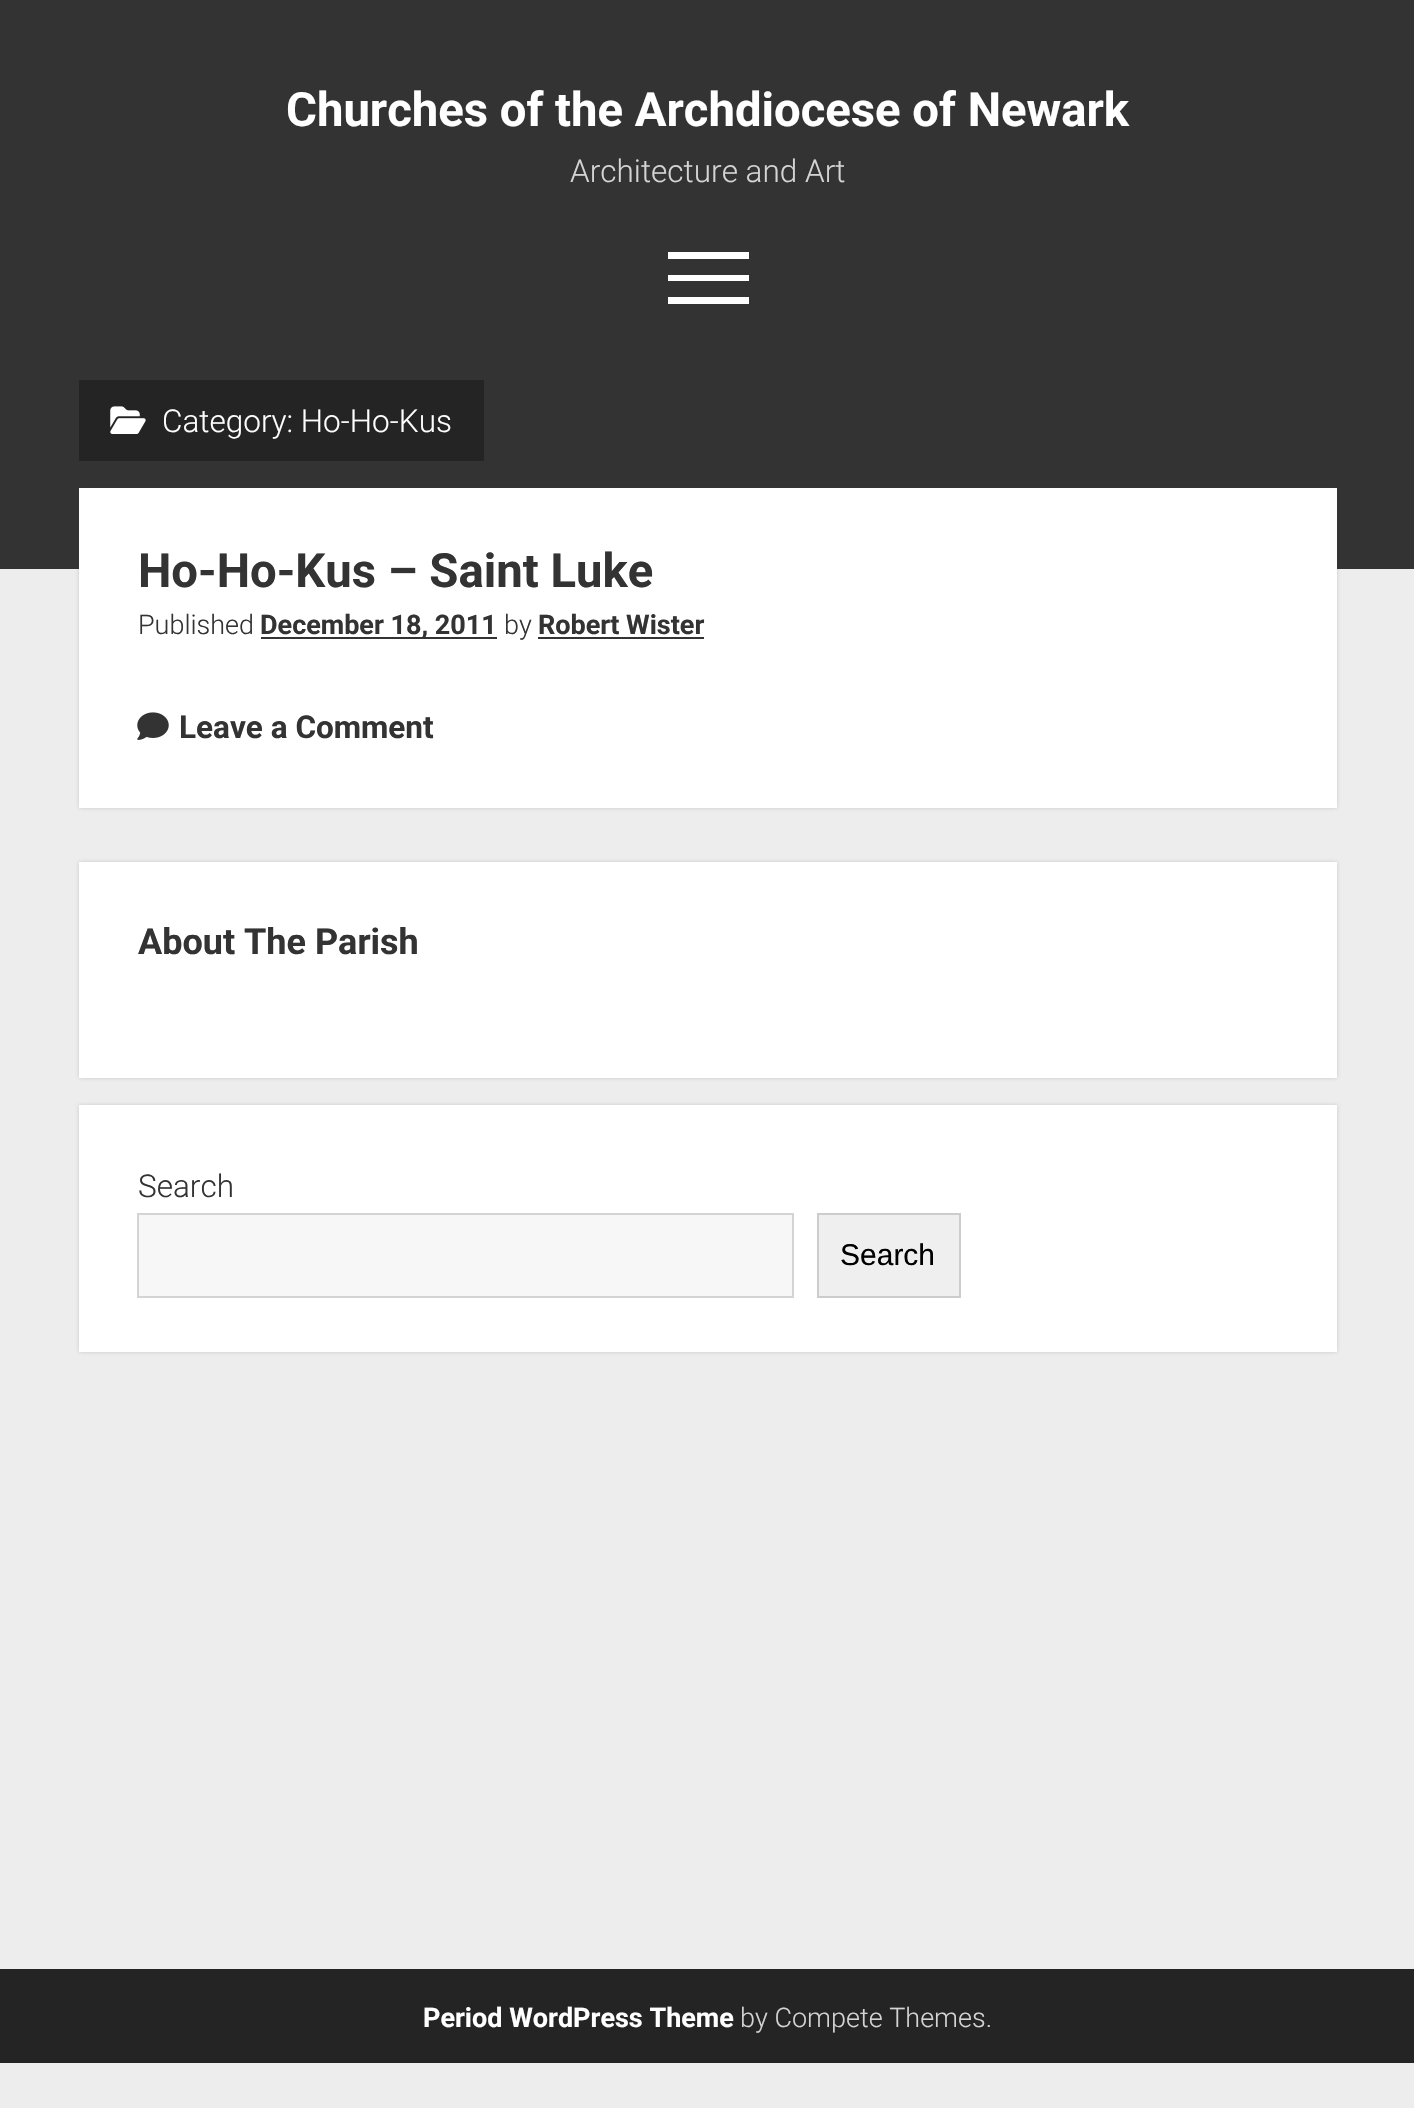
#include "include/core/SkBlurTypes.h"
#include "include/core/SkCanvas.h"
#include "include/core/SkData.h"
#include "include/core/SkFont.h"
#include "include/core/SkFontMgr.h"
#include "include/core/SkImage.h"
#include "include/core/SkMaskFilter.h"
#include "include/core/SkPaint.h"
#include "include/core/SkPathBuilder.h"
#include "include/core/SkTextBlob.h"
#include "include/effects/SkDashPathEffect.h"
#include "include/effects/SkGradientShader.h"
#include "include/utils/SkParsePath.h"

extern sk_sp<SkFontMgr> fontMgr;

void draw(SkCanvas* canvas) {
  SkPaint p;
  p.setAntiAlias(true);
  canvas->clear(SkColorSetRGB(237, 237, 237));
  p.setColor(SkColorSetRGB(51, 51, 51));
  canvas->drawRect(SkRect::MakeLTRB(0, 0, 1414, 569), p);
  p.setColor(SK_ColorWHITE);
  canvas->drawRect(SkRect::MakeLTRB(668, 252, 749, 259), p);
  canvas->drawRect(SkRect::MakeLTRB(668, 275, 749, 281), p);
  canvas->drawRect(SkRect::MakeLTRB(668, 297, 749, 304), p);
  p.setColor(SkColorSetRGB(36, 36, 36));
  canvas->drawRect(SkRect::MakeLTRB(79, 380, 484, 461), p);
  canvas->drawImageRect(SkImages::DeferredFromEncodedData(SkData::MakeFromFileName("images/1.png")), SkRect::MakeLTRB(110, 406, 146, 434), SkSamplingOptions());
  p.setColor(SkColorSetARGB(51, 58, 58, 58));
  p.setMaskFilter(SkMaskFilter::MakeBlur(kNormal_SkBlurStyle, 2));
  canvas->drawRect(SkRect::MakeLTRB(79, 488, 1337, 808), p);
  p.setMaskFilter(nullptr);
  p.setColor(SK_ColorWHITE);
  canvas->drawRect(SkRect::MakeLTRB(79, 488, 1337, 808), p);
  p.setColor(SkColorSetRGB(51, 51, 51));
  canvas->drawRect(SkRect::MakeLTRB(261, 637, 497, 639), p);
  canvas->drawRect(SkRect::MakeLTRB(538, 637, 704, 639), p);
  canvas->drawImageRect(SkImages::DeferredFromEncodedData(SkData::MakeFromFileName("images/2.png")), SkRect::MakeLTRB(137, 712, 169, 740), SkSamplingOptions());
  p.setColor(SkColorSetARGB(51, 58, 58, 58));
  p.setMaskFilter(SkMaskFilter::MakeBlur(kNormal_SkBlurStyle, 2));
  canvas->drawRect(SkRect::MakeLTRB(79, 862, 1337, 1078), p);
  p.setMaskFilter(nullptr);
  p.setColor(SK_ColorWHITE);
  canvas->drawRect(SkRect::MakeLTRB(79, 862, 1337, 1078), p);
  p.setColor(SkColorSetARGB(51, 58, 58, 58));
  p.setMaskFilter(SkMaskFilter::MakeBlur(kNormal_SkBlurStyle, 2));
  canvas->drawRect(SkRect::MakeLTRB(79, 1105, 1337, 1352), p);
  p.setMaskFilter(nullptr);
  p.setColor(SK_ColorWHITE);
  canvas->drawRect(SkRect::MakeLTRB(79, 1105, 1337, 1352), p);
  p.setColor(SkColorSetRGB(247, 247, 247));
  canvas->drawRect(SkRect::MakeLTRB(138, 1214, 793, 1297), p);
  p.setStyle(SkPaint::kStroke_Style);
  p.setStrokeWidth(2);
  p.setColor(SkColorSetRGB(212, 212, 212));
  canvas->drawRect(SkRect::MakeLTRB(138, 1214, 793, 1297), p);
  p.setStyle(SkPaint::kFill_Style);
  p.setColor(SkColorSetRGB(239, 239, 239));
  canvas->drawRect(SkRect::MakeLTRB(818, 1214, 960, 1297), p);
  p.setStyle(SkPaint::kStroke_Style);
  p.setColor(SkColorSetRGB(204, 204, 204));
  canvas->drawRect(SkRect::MakeLTRB(818, 1214, 960, 1297), p);
  p.setStyle(SkPaint::kFill_Style);
  p.setColor(SkColorSetRGB(36, 36, 36));
  canvas->drawRect(SkRect::MakeLTRB(0, 1969, 1414, 2063), p);
  SkFont font1(fontMgr->matchFamilyStyle("Roboto", SkFontStyle::Bold()), 47.25f);
  font1.setSubpixel(true);
  p.setColor(SK_ColorWHITE);
  canvas->drawString("Churches of the Archdiocese of Newark", 286, 126, font1, p);
  SkFont font2(fontMgr->matchFamilyStyle("Roboto", SkFontStyle(300, SkFontStyle::kNormal_Width, SkFontStyle::kUpright_Slant)), 31.5f);
  font2.setSubpixel(true);
  p.setColor(SkColorSetRGB(212, 212, 212));
  canvas->drawString("Architecture and Art", 570, 182, font2, p);
  p.setColor(SK_ColorWHITE);
  canvas->drawString("Category: Ho-Ho-Kus", 162, 432, font2, p);
  p.setColor(SkColorSetRGB(51, 51, 51));
  canvas->drawString("Ho-Ho-Kus – Saint Luke", 138, 587, font1, p);
  SkFont font3(fontMgr->matchFamilyStyle("Roboto", SkFontStyle(300, SkFontStyle::kNormal_Width, SkFontStyle::kUpright_Slant)), 27);
  font3.setSubpixel(true);
  canvas->drawString("Published", 138, 634, font3, p);
  SkFont font4(fontMgr->matchFamilyStyle("Roboto", SkFontStyle::Bold()), 27);
  font4.setSubpixel(true);
  canvas->drawString("December 18, 2011", 260, 634, font4, p);
  canvas->drawString("by", 504, 634, font3, p);
  canvas->drawString("Robert Wister", 538, 634, font4, p);
  SkFont font5(fontMgr->matchFamilyStyle("Roboto", SkFontStyle::Bold()), 31.5f);
  font5.setSubpixel(true);
  canvas->drawString("Leave a Comment", 179, 738, font5, p);
  SkFont font6(fontMgr->matchFamilyStyle("Roboto", SkFontStyle::Bold()), 36);
  font6.setSubpixel(true);
  canvas->drawString("About The Parish", 138, 954, font6, p);
  canvas->drawString("Search", 138, 1197, font2, p);
  SkFont font7(fontMgr->matchFamilyStyle("Liberation Sans", SkFontStyle::Normal()), 30);
  font7.setSubpixel(true);
  p.setColor(SK_ColorBLACK);
  canvas->drawString("Search", 840, 1265, font7, p);
  p.setColor(SK_ColorWHITE);
  canvas->drawString("Period WordPress Theme", 423, 2027, font4, p);
  p.setColor(SkColorSetRGB(212, 212, 212));
  canvas->drawString("by Compete Themes.", 740, 2027, font3, p);
}
